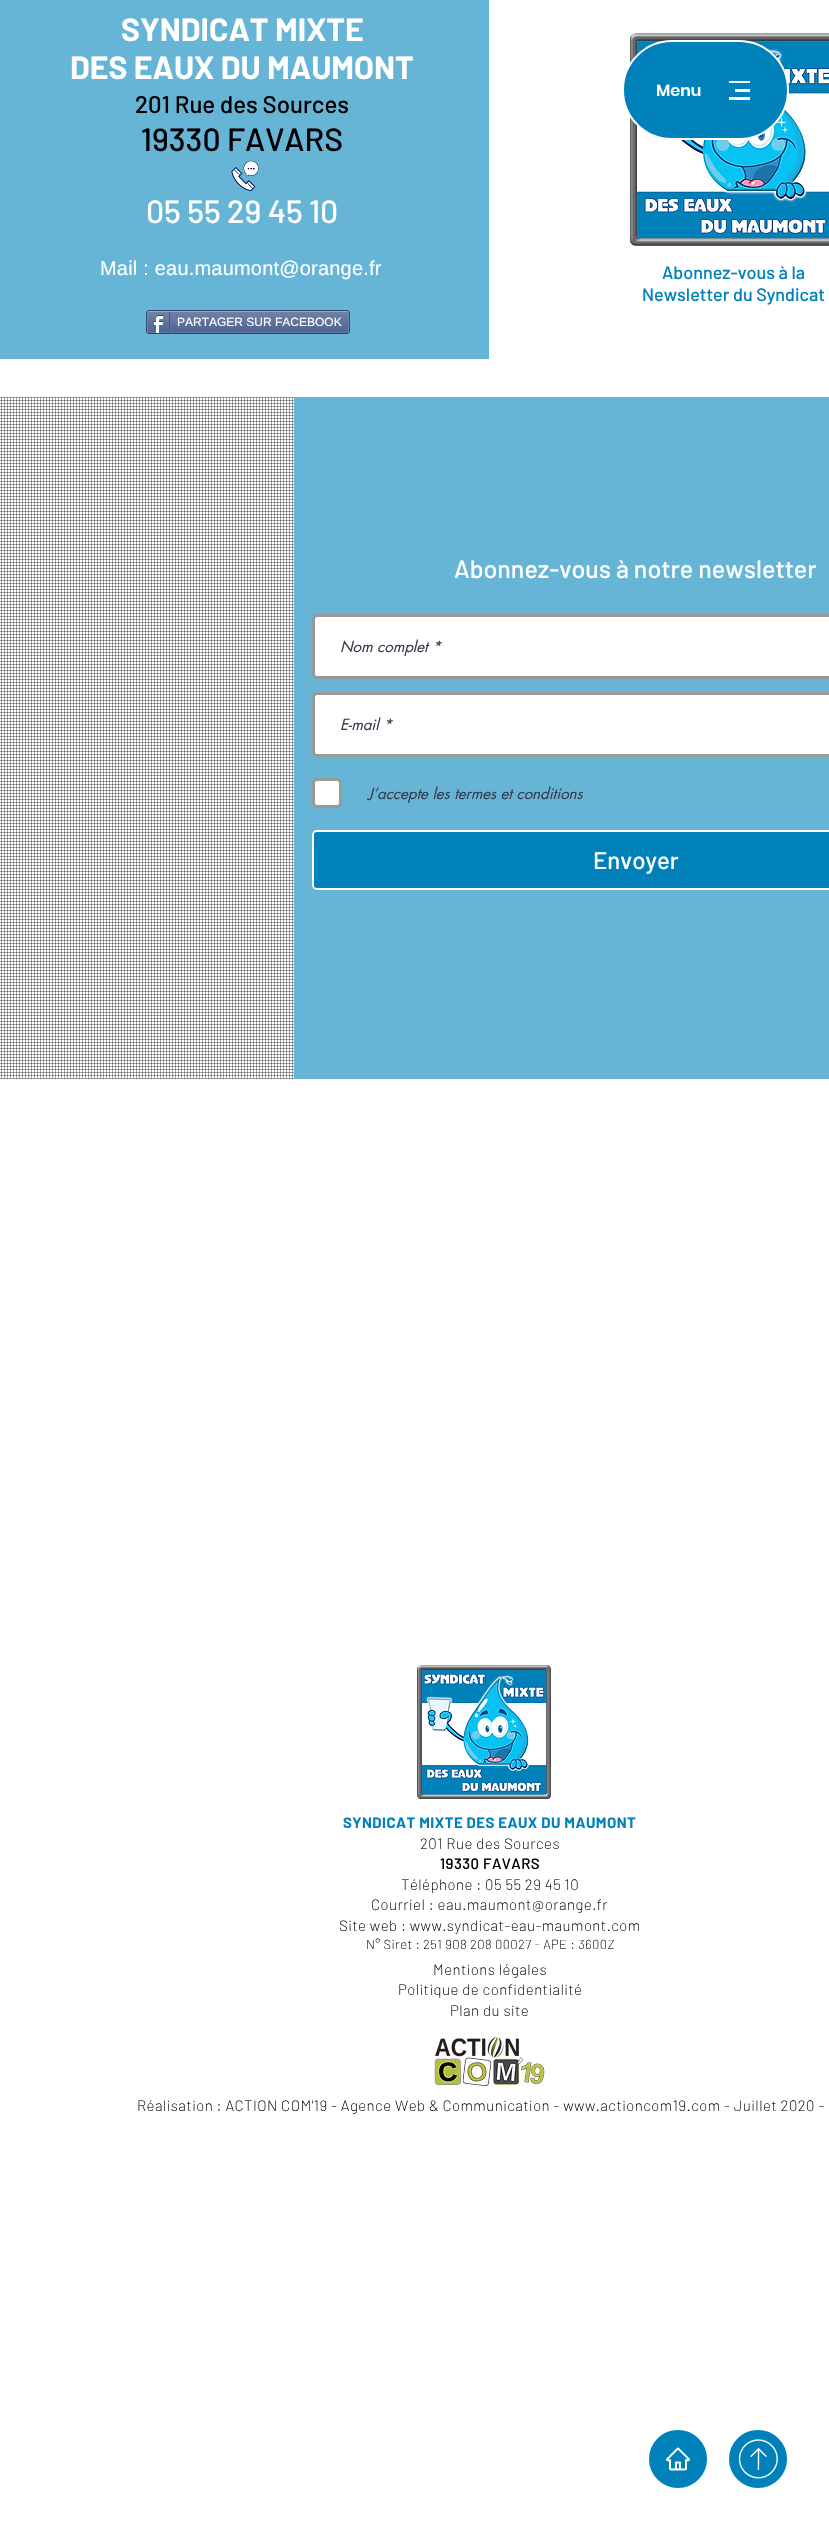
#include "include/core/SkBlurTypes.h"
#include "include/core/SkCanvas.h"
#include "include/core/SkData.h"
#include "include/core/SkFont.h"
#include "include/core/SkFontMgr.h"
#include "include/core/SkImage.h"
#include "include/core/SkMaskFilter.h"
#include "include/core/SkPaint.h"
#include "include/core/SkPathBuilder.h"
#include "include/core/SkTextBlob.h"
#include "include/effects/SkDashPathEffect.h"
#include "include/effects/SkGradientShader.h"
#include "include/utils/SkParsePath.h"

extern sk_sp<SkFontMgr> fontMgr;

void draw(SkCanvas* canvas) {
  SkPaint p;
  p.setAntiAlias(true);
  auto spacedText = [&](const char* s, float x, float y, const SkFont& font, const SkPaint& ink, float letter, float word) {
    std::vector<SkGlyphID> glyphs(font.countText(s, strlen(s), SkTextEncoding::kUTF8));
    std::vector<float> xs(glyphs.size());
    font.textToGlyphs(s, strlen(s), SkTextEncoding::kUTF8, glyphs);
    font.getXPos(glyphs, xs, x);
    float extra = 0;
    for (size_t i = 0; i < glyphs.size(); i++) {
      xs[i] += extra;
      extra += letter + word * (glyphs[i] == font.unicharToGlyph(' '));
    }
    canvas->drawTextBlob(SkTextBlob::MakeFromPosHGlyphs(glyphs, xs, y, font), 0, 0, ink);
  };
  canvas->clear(SK_ColorWHITE);
  p.setColor(SkColorSetRGB(102, 180, 214));
  canvas->drawRect(SkRect::MakeLTRB(0, 0, 489, 359), p);
  canvas->drawImageRect(SkImages::DeferredFromEncodedData(SkData::MakeFromFileName("images/1.png")), SkRect::MakeLTRB(231, 160, 259, 192), SkSamplingOptions());
  p.setStyle(SkPaint::kStroke_Style);
  p.setStrokeWidth(1);
  p.setColor(SkColorSetRGB(45, 69, 101));
  canvas->drawRoundRect(SkRect::MakeLTRB(146.5f, 310.5f, 349.5f, 333.5f), 2.5f, 2.5f, p);
  canvas->drawImageRect(SkImages::DeferredFromEncodedData(SkData::MakeFromFileName("images/2.png")), SkRect::MakeLTRB(147, 312, 349, 333), SkSamplingOptions());
  p.setColor(SkColorSetRGB(154, 171, 198));
  canvas->drawPath(SkPathBuilder().moveTo(148, 312).lineTo(149, 311.5f).lineTo(347, 311.5f).lineTo(348, 312).detach(), p);
  p.setColor(SkColorSetRGB(111, 131, 173));
  canvas->drawPath(SkPathBuilder().moveTo(348, 312).cubicTo(349, 312.5f, 349, 331.5f, 348, 332).detach(), p);
  p.setColor(SkColorSetRGB(97, 118, 163));
  canvas->drawPath(SkPathBuilder().moveTo(348, 332).lineTo(347, 332.5f).lineTo(149, 332.5f).lineTo(148, 332).detach(), p);
  p.setColor(SkColorSetRGB(111, 131, 173));
  canvas->drawPath(SkPathBuilder().moveTo(148, 332).cubicTo(147, 331.5f, 147, 312.5f, 148, 312).detach(), p);
  canvas->drawImageRect(SkImages::DeferredFromEncodedData(SkData::MakeFromFileName("images/3.png")), SkRect::MakeLTRB(153, 315, 163, 333), SkSamplingOptions());
  p.setStyle(SkPaint::kFill_Style);
  p.setColor(SkColorSetRGB(66, 94, 133));
  canvas->drawRect(SkRect::MakeLTRB(169, 312, 170, 333), p);
  p.setColor(SkColorSetRGB(97, 118, 163));
  canvas->drawRect(SkRect::MakeLTRB(170, 312, 171, 332), p);
  canvas->drawImageRect(SkImages::DeferredFromEncodedData(SkData::MakeFromFileName("images/4.png")), SkRect::MakeLTRB(630, 33, 829, 246), SkSamplingOptions());
  p.setColor(SkColorSetRGB(0, 129, 186));
  canvas->drawRoundRect(SkRect::MakeLTRB(623, 41, 788, 139), 49, 49, p);
  p.setStyle(SkPaint::kStroke_Style);
  p.setStrokeWidth(2);
  p.setColor(SK_ColorWHITE);
  canvas->drawRoundRect(SkRect::MakeLTRB(623, 41, 788, 139), 49, 49, p);
  p.setStyle(SkPaint::kFill_Style);
  canvas->drawRect(SkRect::MakeLTRB(729, 81, 750, 83), p);
  canvas->drawRect(SkRect::MakeLTRB(735, 89, 750, 92), p);
  canvas->drawRect(SkRect::MakeLTRB(729, 97, 750, 100), p);
  canvas->drawImageRect(SkImages::DeferredFromEncodedData(SkData::MakeFromFileName("images/5.png")), SkRect::MakeLTRB(0, 397, 294, 1079), SkSamplingOptions());
  p.setColor(SkColorSetRGB(102, 180, 214));
  canvas->drawRect(SkRect::MakeLTRB(294, 397, 829, 1079), p);
  p.setColor(SK_ColorWHITE);
  canvas->drawRoundRect(SkRect::MakeLTRB(313.5f, 615.5f, 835.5f, 677.5f), 3.5f, 3.5f, p);
  p.setStyle(SkPaint::kStroke_Style);
  p.setStrokeWidth(3);
  p.setColor(SkColorSetRGB(153, 153, 151));
  canvas->drawRoundRect(SkRect::MakeLTRB(313.5f, 615.5f, 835.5f, 677.5f), 3.5f, 3.5f, p);
  p.setStyle(SkPaint::kFill_Style);
  p.setColor(SK_ColorWHITE);
  canvas->drawRoundRect(SkRect::MakeLTRB(313.5f, 693.5f, 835.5f, 755.5f), 3.5f, 3.5f, p);
  p.setStyle(SkPaint::kStroke_Style);
  p.setColor(SkColorSetRGB(153, 153, 151));
  canvas->drawRoundRect(SkRect::MakeLTRB(313.5f, 693.5f, 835.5f, 755.5f), 3.5f, 3.5f, p);
  p.setStyle(SkPaint::kFill_Style);
  p.setColor(SK_ColorWHITE);
  canvas->drawRoundRect(SkRect::MakeLTRB(313.5f, 779.5f, 340.5f, 806.5f), 3.5f, 3.5f, p);
  p.setStyle(SkPaint::kStroke_Style);
  p.setColor(SkColorSetRGB(153, 153, 151));
  canvas->drawRoundRect(SkRect::MakeLTRB(313.5f, 779.5f, 340.5f, 806.5f), 3.5f, 3.5f, p);
  p.setStyle(SkPaint::kFill_Style);
  p.setColor(SkColorSetRGB(0, 129, 186));
  canvas->drawRoundRect(SkRect::MakeLTRB(313, 831, 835, 889), 4, 4, p);
  p.setStyle(SkPaint::kStroke_Style);
  p.setStrokeWidth(2);
  p.setColor(SK_ColorWHITE);
  canvas->drawRoundRect(SkRect::MakeLTRB(313, 831, 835, 889), 4, 4, p);
  canvas->drawImageRect(SkImages::DeferredFromEncodedData(SkData::MakeFromFileName("images/6.png")), SkRect::MakeLTRB(417, 1665, 551, 1799), SkSamplingOptions());
  canvas->drawImageRect(SkImages::DeferredFromEncodedData(SkData::MakeFromFileName("images/7.png")), SkRect::MakeLTRB(434, 2037, 545, 2086), SkSamplingOptions());
  p.setStyle(SkPaint::kFill_Style);
  p.setColor(SkColorSetRGB(0, 129, 186));
  canvas->drawCircle(678, 2459, 30, p);
  p.setStyle(SkPaint::kStroke_Style);
  p.setColor(SK_ColorWHITE);
  canvas->drawCircle(678, 2459, 30, p);
  canvas->drawImageRect(SkImages::DeferredFromEncodedData(SkData::MakeFromFileName("images/8.png")), SkRect::MakeLTRB(666, 2447, 690, 2471), SkSamplingOptions());
  p.setStyle(SkPaint::kFill_Style);
  p.setColor(SkColorSetRGB(0, 129, 186));
  canvas->drawCircle(758, 2459, 30, p);
  p.setStyle(SkPaint::kStroke_Style);
  p.setColor(SK_ColorWHITE);
  canvas->drawCircle(758, 2459, 30, p);
  canvas->drawImageRect(SkImages::DeferredFromEncodedData(SkData::MakeFromFileName("images/9.png")), SkRect::MakeLTRB(738, 2439, 778, 2479), SkSamplingOptions());
  SkFont font1(fontMgr->matchFamilyStyle("Barlow", SkFontStyle::Bold()), 32);
  font1.setSubpixel(true);
  p.setStyle(SkPaint::kFill_Style);
  canvas->drawString("SYNDICAT MIXTE", 121, 41, font1, p);
  canvas->drawString("DES EAUX DU MAUMONT", 70, 79, font1, p);
  SkFont font2(fontMgr->matchFamilyStyle("Barlow", SkFontStyle(500, SkFontStyle::kNormal_Width, SkFontStyle::kUpright_Slant)), 24);
  font2.setSubpixel(true);
  p.setColor(SK_ColorBLACK);
  canvas->drawString("201 Rue des Sources", 135, 113, font2, p);
  SkFont font3(fontMgr->matchFamilyStyle("Barlow", SkFontStyle(500, SkFontStyle::kNormal_Width, SkFontStyle::kUpright_Slant)), 32);
  font3.setSubpixel(true);
  canvas->drawString("19330 FAVARS", 141, 151, font3, p);
  p.setColor(SK_ColorWHITE);
  canvas->drawString("05 55 29 45 10", 146, 223, font3, p);
  SkFont font4(fontMgr->matchFamilyStyle("Liberation Sans", SkFontStyle::Normal()), 20);
  font4.setSubpixel(true);
  spacedText("Mail : eau.maumont@orange.fr", 100, 275, font4, p, 0.2f, 0);
  SkFont font5(fontMgr->matchFamilyStyle("Liberation Sans", SkFontStyle::Normal()), 12);
  font5.setSubpixel(true);
  canvas->drawString("PARTAGER SUR FACEBOOK", 177, 326, font5, p);
  SkFont font6(fontMgr->matchFamilyStyle("Barlow", SkFontStyle(500, SkFontStyle::kNormal_Width, SkFontStyle::kUpright_Slant)), 18);
  font6.setSubpixel(true);
  p.setColor(SkColorSetRGB(0, 129, 186));
  canvas->drawString("Abonnez-vous à la", 662, 279, font6, p);
  canvas->drawString("Newsletter du Syndicat", 642, 301, font6, p);
  SkFont font7(fontMgr->matchFamilyStyle("Poppins", SkFontStyle(600, SkFontStyle::kNormal_Width, SkFontStyle::kUpright_Slant)), 16);
  font7.setSubpixel(true);
  p.setColor(SK_ColorWHITE);
  canvas->drawString("Menu", 656, 96, font7, p);
  SkFont font8(fontMgr->matchFamilyStyle("Barlow", SkFontStyle(500, SkFontStyle::kNormal_Width, SkFontStyle::kUpright_Slant)), 25);
  font8.setSubpixel(true);
  canvas->drawString("Abonnez-vous à notre newsletter", 454, 578, font8, p);
  SkFont font9(fontMgr->matchFamilyStyle("futura", SkFontStyle::Italic()), 15);
  font9.setSubpixel(true);
  p.setColor(SkColorSetRGB(55, 59, 77));
  canvas->drawString("Nom complet *", 340, 652, font9, p);
  canvas->drawString("E-mail *", 340, 730, font9, p);
  canvas->drawString("J’accepte les termes et conditions", 368, 799, font9, p);
  p.setColor(SK_ColorWHITE);
  canvas->drawString("Envoyer", 593, 869, font2, p);
  SkFont font10(fontMgr->matchFamilyStyle("Barlow", SkFontStyle::Bold()), 15);
  font10.setSubpixel(true);
  p.setColor(SkColorSetRGB(0, 129, 186));
  spacedText("SYNDICAT MIXTE DES EAUX DU MAUMONT", 343, 1828, font10, p, 0.45f, 0);
  SkFont font11(fontMgr->matchFamilyStyle("Barlow", SkFontStyle(200, SkFontStyle::kNormal_Width, SkFontStyle::kUpright_Slant)), 15);
  font11.setSubpixel(true);
  p.setColor(SK_ColorBLACK);
  spacedText("201 Rue des Sources", 420, 1849, font11, p, 0.45f, 0);
  SkFont font12(fontMgr->matchFamilyStyle("Barlow", SkFontStyle(500, SkFontStyle::kNormal_Width, SkFontStyle::kUpright_Slant)), 15);
  font12.setSubpixel(true);
  spacedText("19330 FAVARS", 440, 1869, font12, p, 0.45f, 0);
  spacedText("Téléphone : 05 55 29 45 10", 401, 1890, font11, p, 0.45f, 0);
  spacedText("Courriel : eau.maumont@orange.fr", 371, 1910, font11, p, 0.45f, 0);
  spacedText("Site web : www.syndicat-eau-maumont.com", 339, 1931, font11, p, 0.45f, 0);
  SkFont font13(fontMgr->matchFamilyStyle("Barlow", SkFontStyle(200, SkFontStyle::kNormal_Width, SkFontStyle::kUpright_Slant)), 13);
  font13.setSubpixel(true);
  spacedText("N° Siret : 251 908 208 00027 - APE : 3600Z", 366, 1949, font13, p, 0.4f, 0);
  spacedText("Mentions légales", 433, 1975, font11, p, 0.45f, 0);
  spacedText("Politique de confidentialité", 398, 1995, font11, p, 0.45f, 0);
  spacedText("Plan du site", 450, 2016, font11, p, 0.45f, 0);
  spacedText("Réalisation : ACTION COM'19 - Agence Web & Communication - www.actioncom19.com - Juillet 2020 -", 137, 2111, font11, p, 0.45f, 0);
}
